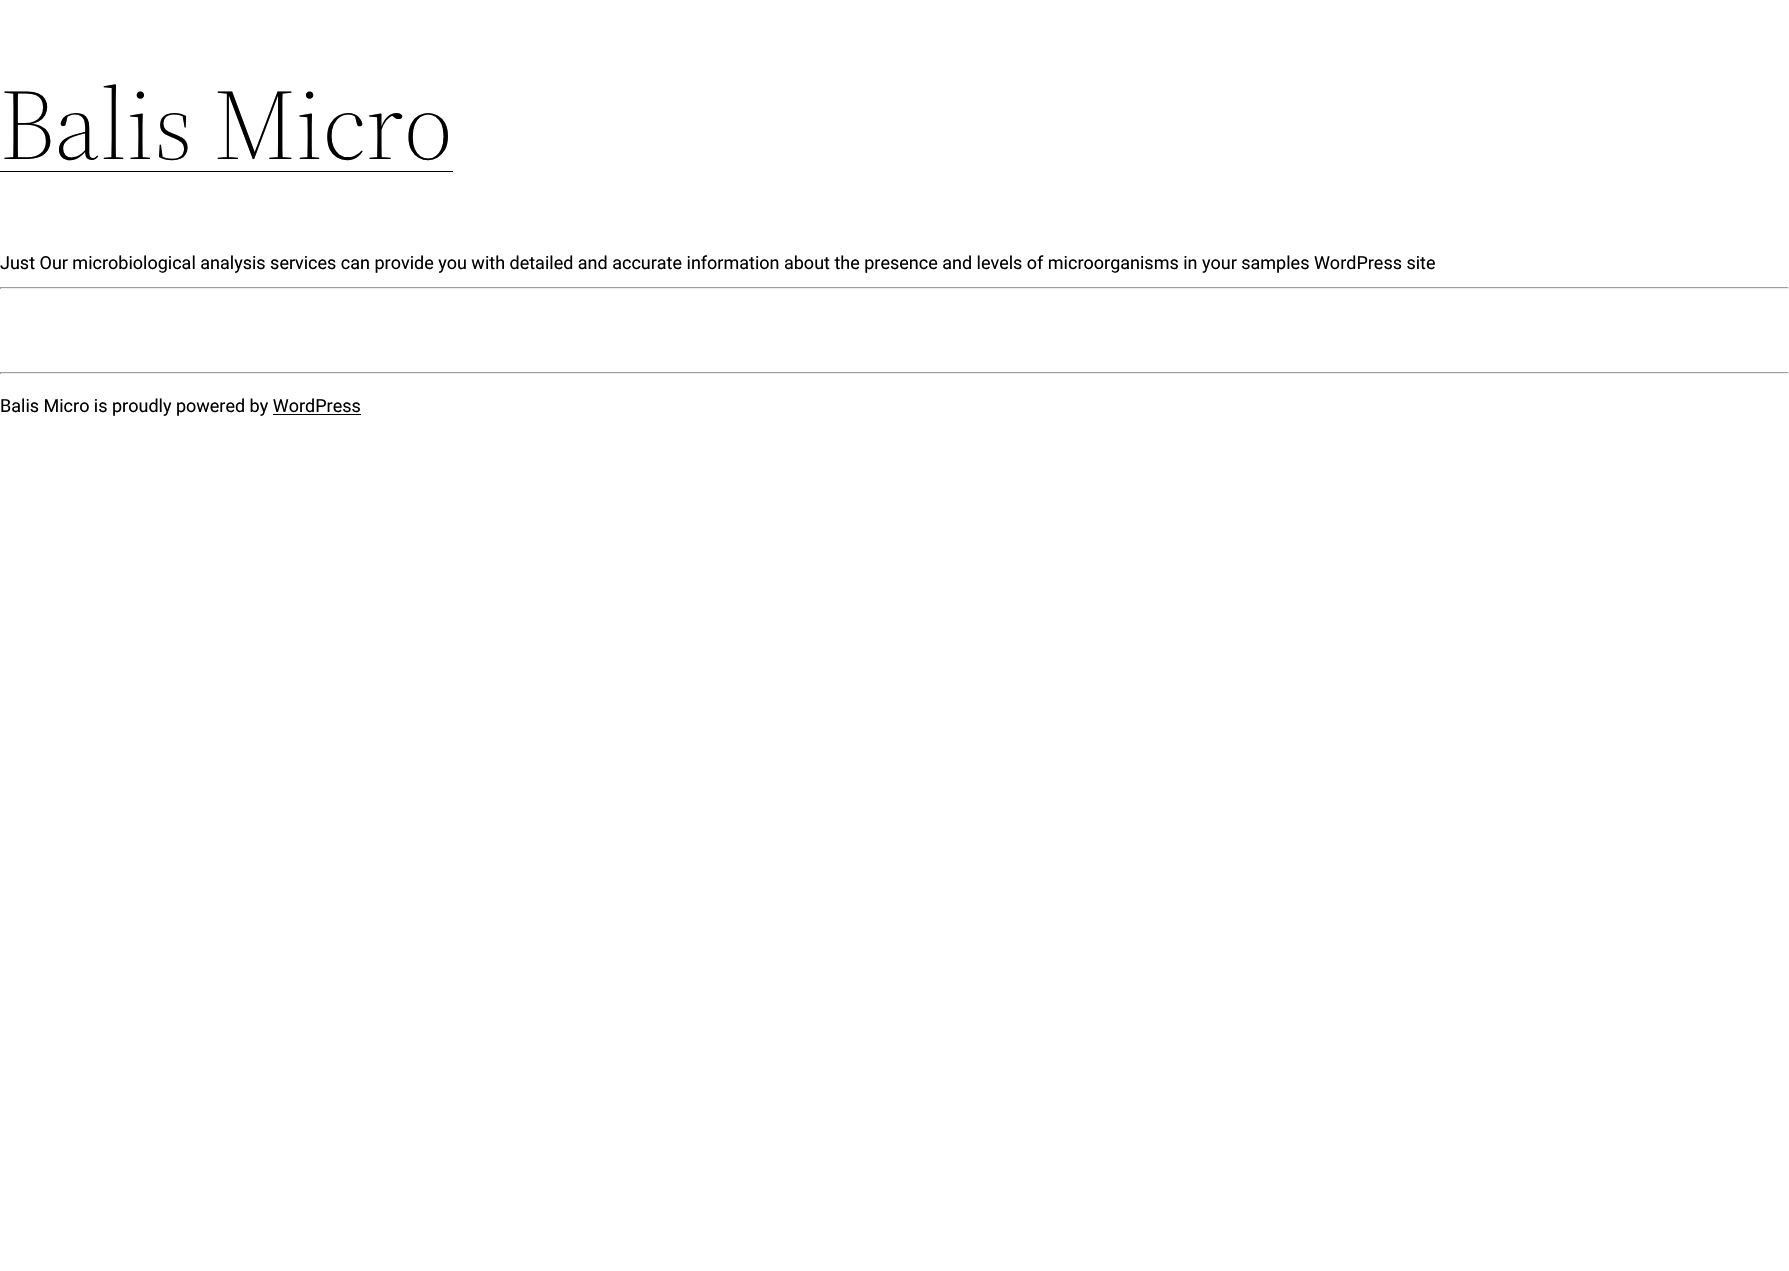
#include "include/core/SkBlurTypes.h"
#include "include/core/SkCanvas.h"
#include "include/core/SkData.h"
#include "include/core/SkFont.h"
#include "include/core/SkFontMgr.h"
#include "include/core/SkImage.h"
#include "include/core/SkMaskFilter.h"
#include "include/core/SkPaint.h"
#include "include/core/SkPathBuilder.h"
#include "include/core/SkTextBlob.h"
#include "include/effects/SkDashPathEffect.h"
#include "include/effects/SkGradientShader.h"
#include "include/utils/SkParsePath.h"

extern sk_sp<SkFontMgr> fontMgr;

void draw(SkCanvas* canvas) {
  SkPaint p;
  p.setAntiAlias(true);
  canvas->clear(SK_ColorWHITE);
  p.setColor(SK_ColorBLACK);
  canvas->drawRect(SkRect::MakeLTRB(0, 171, 453, 172), p);
  p.setColor(SkColorSetRGB(159, 159, 159));
  canvas->drawRect(SkRect::MakeLTRB(0, 287, 1789, 288), p);
  p.setColor(SkColorSetRGB(238, 238, 238));
  canvas->drawRect(SkRect::MakeLTRB(1788, 287, 1789, 289), p);
  canvas->drawRect(SkRect::MakeLTRB(0, 288, 1789, 289), p);
  p.setColor(SkColorSetRGB(159, 159, 159));
  canvas->drawRect(SkRect::MakeLTRB(0, 287, 1, 289), p);
  canvas->drawRect(SkRect::MakeLTRB(0, 372, 1789, 373), p);
  p.setColor(SkColorSetRGB(238, 238, 238));
  canvas->drawRect(SkRect::MakeLTRB(1788, 372, 1789, 374), p);
  canvas->drawRect(SkRect::MakeLTRB(0, 373, 1789, 374), p);
  p.setColor(SkColorSetRGB(159, 159, 159));
  canvas->drawRect(SkRect::MakeLTRB(0, 372, 1, 374), p);
  p.setColor(SK_ColorBLACK);
  canvas->drawRect(SkRect::MakeLTRB(273, 414, 361, 415), p);
  SkFont font1(fontMgr->matchFamilyStyle("Source Serif 4", SkFontStyle(300, SkFontStyle::kNormal_Width, SkFontStyle::kUpright_Slant)), 100);
  font1.setSubpixel(true);
  canvas->drawString("Balis Micro", 0, 159, font1, p);
  SkFont font2(fontMgr->matchFamilyStyle("Roboto", SkFontStyle::Normal()), 18);
  font2.setSubpixel(true);
  canvas->drawString("Just Our microbiological analysis services can provide you with detailed and accurate information about the presence and levels of microorganisms in your samples WordPress site", 0, 269, font2, p);
  canvas->drawString("Balis Micro is proudly powered by WordPress", 0, 412, font2, p);
}
